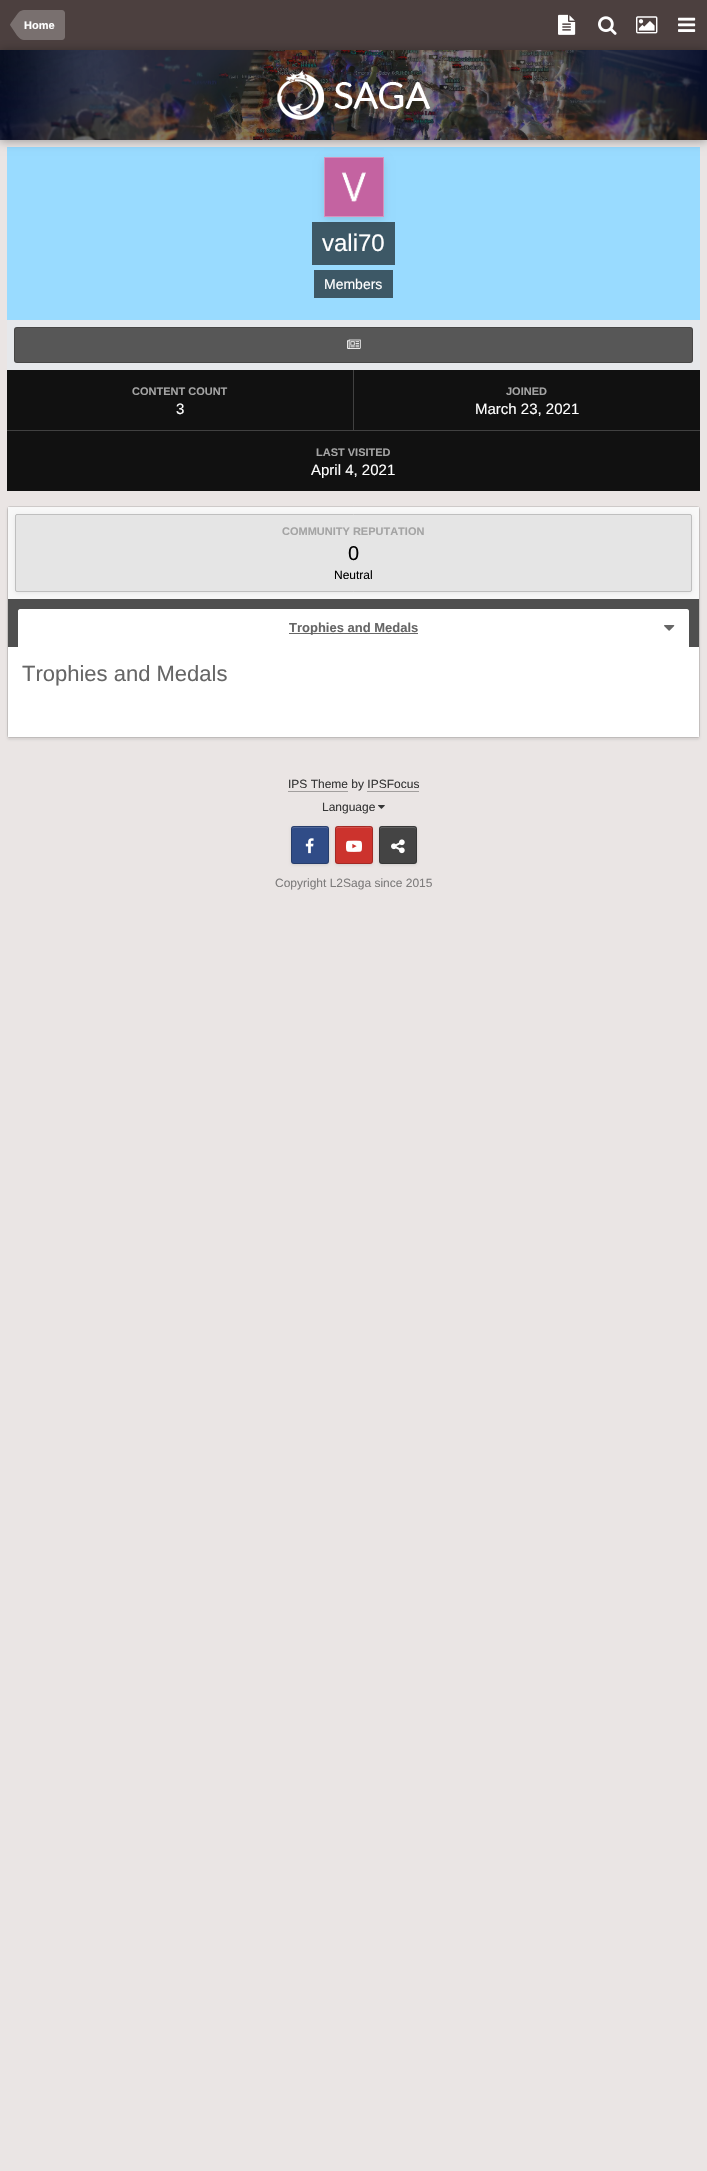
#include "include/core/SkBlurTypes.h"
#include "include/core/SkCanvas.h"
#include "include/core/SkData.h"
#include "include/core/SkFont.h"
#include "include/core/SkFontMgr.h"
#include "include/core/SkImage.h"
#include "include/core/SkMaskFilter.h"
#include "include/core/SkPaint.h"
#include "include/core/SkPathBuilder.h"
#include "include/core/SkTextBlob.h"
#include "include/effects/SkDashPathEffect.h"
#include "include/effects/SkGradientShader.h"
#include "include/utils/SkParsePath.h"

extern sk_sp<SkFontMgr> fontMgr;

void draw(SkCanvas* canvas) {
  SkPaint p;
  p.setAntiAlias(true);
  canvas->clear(SkColorSetRGB(234, 229, 228));
  p.setColor(SkColorSetRGB(76, 64, 63));
  canvas->drawRect(SkRect::MakeLTRB(0, 0, 707, 50), p);
  p.setColor(SkColorSetRGB(121, 112, 111));
  canvas->drawPath(SkPathBuilder().moveTo(24, 10).lineTo(62, 10).cubicTo(63.5f, 10, 65, 11.5f, 65, 13).lineTo(65, 37).cubicTo(65, 38.5f, 63.5f, 40, 62, 40).lineTo(24, 40).close().detach(), p);
  canvas->drawPath(SkPathBuilder().moveTo(24, 25).lineTo(24, 40).cubicTo(22, 40, 19.5f, 38.5f, 17, 35.5f).lineTo(10, 25).close().moveTo(24, 25).lineTo(10, 25).cubicTo(10, 24, 18.5f, 12.5f, 19, 12).cubicTo(20.5f, 11, 22, 10, 24, 10).close().detach(), p);
  canvas->drawImageRect(SkImages::DeferredFromEncodedData(SkData::MakeFromFileName("images/1.png")), SkRect::MakeLTRB(558, 14, 576, 35), SkSamplingOptions());
  canvas->drawImageRect(SkImages::DeferredFromEncodedData(SkData::MakeFromFileName("images/2.png")), SkRect::MakeLTRB(598, 16, 617, 35), SkSamplingOptions());
  canvas->drawImageRect(SkImages::DeferredFromEncodedData(SkData::MakeFromFileName("images/3.png")), SkRect::MakeLTRB(636, 16, 658, 34), SkSamplingOptions());
  canvas->drawImageRect(SkImages::DeferredFromEncodedData(SkData::MakeFromFileName("images/4.png")), SkRect::MakeLTRB(678, 17, 696, 32), SkSamplingOptions());
  p.setColor(SkColorSetRGB(153, 219, 255));
  canvas->drawRect(SkRect::MakeLTRB(7, 147, 700, 320), p);
  p.setColor(SkColorSetARGB(89, 0, 0, 0));
  p.setMaskFilter(SkMaskFilter::MakeBlur(kNormal_SkBlurStyle, 5));
  canvas->drawRect(SkRect::MakeLTRB(0, 51, 707, 141), p);
  p.setMaskFilter(nullptr);
  canvas->drawImageRect(SkImages::DeferredFromEncodedData(SkData::MakeFromFileName("images/5.png")), SkRect::MakeLTRB(0, 50, 707, 140), SkSamplingOptions());
  canvas->drawImageRect(SkImages::DeferredFromEncodedData(SkData::MakeFromFileName("images/6.png")), SkRect::MakeLTRB(277, 70, 431, 120), SkSamplingOptions());
  canvas->drawImageRect(SkImages::DeferredFromEncodedData(SkData::MakeFromFileName("images/7.png")), SkRect::MakeLTRB(325, 158, 383, 216), SkSamplingOptions());
  p.setColor(SkColorSetRGB(61, 88, 102));
  canvas->drawRect(SkRect::MakeLTRB(312, 222, 395, 265), p);
  canvas->save();
  canvas->clipPath(SkPathBuilder(SkPathFillType::kEvenOdd).moveTo(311, 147).lineTo(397, 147).lineTo(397, 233).lineTo(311, 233).close().moveTo(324, 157).lineTo(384, 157).lineTo(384, 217).lineTo(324, 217).close().detach(), true);
  p.setColor(SkColorSetARGB(26, 0, 0, 0));
  p.setMaskFilter(SkMaskFilter::MakeBlur(kNormal_SkBlurStyle, 4));
  canvas->drawRect(SkRect::MakeLTRB(324, 160, 384, 220), p);
  p.setMaskFilter(nullptr);
  canvas->restore();
  p.setStyle(SkPaint::kStroke_Style);
  p.setStrokeWidth(1);
  p.setColor(SkColorSetRGB(213, 146, 189));
  canvas->drawRect(SkRect::MakeLTRB(324.5f, 157.5f, 383.5f, 216.5f), p);
  p.setStyle(SkPaint::kFill_Style);
  p.setColor(SkColorSetRGB(61, 88, 102));
  canvas->drawRect(SkRect::MakeLTRB(314, 270, 393, 298), p);
  p.setColor(SkColorSetRGB(230, 232, 235));
  canvas->drawRect(SkRect::MakeLTRB(7, 320, 700, 370), p);
  p.setColor(SkColorSetRGB(87, 87, 87));
  canvas->drawRoundRect(SkRect::MakeLTRB(14, 327, 693, 363), 3, 3, p);
  canvas->drawImageRect(SkImages::DeferredFromEncodedData(SkData::MakeFromFileName("images/8.png")), SkRect::MakeLTRB(347, 339, 361, 349), SkSamplingOptions());
  p.setStyle(SkPaint::kStroke_Style);
  p.setColor(SkColorSetARGB(51, 0, 0, 0));
  canvas->drawRoundRect(SkRect::MakeLTRB(14.5f, 327.5f, 692.5f, 362.5f), 2.5f, 2.5f, p);
  p.setStyle(SkPaint::kFill_Style);
  p.setColor(SkColorSetRGB(17, 17, 17));
  canvas->drawRect(SkRect::MakeLTRB(7, 370, 700, 491), p);
  p.setColor(SkColorSetRGB(65, 65, 65));
  canvas->drawRect(SkRect::MakeLTRB(353, 370, 354, 430), p);
  canvas->drawRect(SkRect::MakeLTRB(7, 430, 700, 431), p);
  p.setColor(SkColorSetARGB(20, 0, 0, 0));
  p.setMaskFilter(SkMaskFilter::MakeBlur(kNormal_SkBlurStyle, 1));
  canvas->drawRoundRect(SkRect::MakeLTRB(7, 508, 700, 740), 3, 3, p);
  p.setMaskFilter(nullptr);
  p.setStyle(SkPaint::kStroke_Style);
  p.setColor(SkColorSetARGB(28, 0, 0, 0));
  canvas->drawRoundRect(SkRect::MakeLTRB(7.5f, 506.5f, 699.5f, 737.5f), 2.5f, 2.5f, p);
  p.setStyle(SkPaint::kFill_Style);
  p.setColor(SkColorSetRGB(248, 248, 248));
  canvas->drawRect(SkRect::MakeLTRB(8, 507, 699, 599), p);
  p.setColor(SkColorSetARGB(18, 0, 0, 0));
  p.setMaskFilter(SkMaskFilter::MakeBlur(kNormal_SkBlurStyle, 2.5f));
  canvas->drawRoundRect(SkRect::MakeLTRB(15, 515, 692, 593), 3, 3, p);
  p.setMaskFilter(nullptr);
  p.setStyle(SkPaint::kStroke_Style);
  p.setColor(SkColorSetARGB(51, 102, 102, 102));
  canvas->drawRoundRect(SkRect::MakeLTRB(15.5f, 514.5f, 691.5f, 591.5f), 2.5f, 2.5f, p);
  p.setStyle(SkPaint::kFill_Style);
  p.setColor(SkColorSetRGB(229, 229, 229));
  canvas->drawRoundRect(SkRect::MakeLTRB(15.5f, 514.5f, 691.5f, 591.5f), 1.5f, 1.5f, p);
  p.setStyle(SkPaint::kStroke_Style);
  p.setColor(SkColorSetRGB(191, 191, 191));
  canvas->drawRoundRect(SkRect::MakeLTRB(15.5f, 514.5f, 691.5f, 591.5f), 1.5f, 1.5f, p);
  p.setStyle(SkPaint::kFill_Style);
  p.setColor(SkColorSetRGB(79, 79, 79));
  canvas->drawRect(SkRect::MakeLTRB(8, 599, 699, 647), p);
  p.setColor(SK_ColorWHITE);
  canvas->drawPath(SkPathBuilder().moveTo(20, 609).lineTo(687, 609).cubicTo(688, 609, 689, 610, 689, 611).lineTo(689, 647).lineTo(18, 647).lineTo(18, 611).cubicTo(18, 610, 19, 609, 20, 609).close().detach(), p);
  p.setColor(SkColorSetRGB(102, 102, 102));
  canvas->drawRect(SkRect::MakeLTRB(289, 633, 418, 634), p);
  canvas->drawImageRect(SkImages::DeferredFromEncodedData(SkData::MakeFromFileName("images/9.png")), SkRect::MakeLTRB(664, 625, 675, 631), SkSamplingOptions());
  p.setColor(SK_ColorWHITE);
  canvas->drawRect(SkRect::MakeLTRB(8, 647, 699, 737), p);
  p.setColor(SkColorSetRGB(162, 159, 158));
  canvas->drawRect(SkRect::MakeLTRB(288, 791, 348, 792), p);
  canvas->drawRect(SkRect::MakeLTRB(367, 791, 419, 792), p);
  canvas->drawImageRect(SkImages::DeferredFromEncodedData(SkData::MakeFromFileName("images/10.png")), SkRect::MakeLTRB(378, 805, 385, 809), SkSamplingOptions());
  p.setColor(SkColorSetARGB(26, 0, 0, 0));
  p.setMaskFilter(SkMaskFilter::MakeBlur(kNormal_SkBlurStyle, 1.5f));
  canvas->drawRoundRect(SkRect::MakeLTRB(291, 827, 329, 865), 3, 3, p);
  p.setMaskFilter(nullptr);
  p.setColor(SkColorSetRGB(48, 76, 135));
  canvas->drawRoundRect(SkRect::MakeLTRB(291, 826, 329, 864), 3, 3, p);
  p.setColor(SkColorSetRGB(79, 103, 153));
  canvas->drawPath(SkPathBuilder().moveTo(294, 828).cubicTo(293, 828, 292, 829, 292, 830).cubicTo(292, 825.5f, 295.5f, 827, 299.5f, 827).lineTo(320.5f, 827).cubicTo(324.5f, 827, 328, 825.5f, 328, 830).cubicTo(328, 829, 327, 828, 326, 828).close().detach(), p);
  canvas->drawImageRect(SkImages::DeferredFromEncodedData(SkData::MakeFromFileName("images/11.png")), SkRect::MakeLTRB(305, 838, 314, 854), SkSamplingOptions());
  p.setStyle(SkPaint::kStroke_Style);
  p.setColor(SkColorSetARGB(51, 0, 0, 0));
  canvas->drawRoundRect(SkRect::MakeLTRB(291.5f, 826.5f, 328.5f, 863.5f), 2.5f, 2.5f, p);
  p.setStyle(SkPaint::kFill_Style);
  p.setColor(SkColorSetARGB(26, 0, 0, 0));
  p.setMaskFilter(SkMaskFilter::MakeBlur(kNormal_SkBlurStyle, 1.5f));
  canvas->drawRoundRect(SkRect::MakeLTRB(335, 827, 373, 865), 3, 3, p);
  p.setMaskFilter(nullptr);
  p.setColor(SkColorSetRGB(204, 51, 45));
  canvas->drawRoundRect(SkRect::MakeLTRB(335, 826, 373, 864), 3, 3, p);
  p.setColor(SkColorSetRGB(212, 82, 77));
  canvas->drawPath(SkPathBuilder().moveTo(338, 828).cubicTo(337, 828, 336, 829, 336, 830).cubicTo(336, 825.5f, 339.5f, 827, 343.5f, 827).lineTo(364.5f, 827).cubicTo(368.5f, 827, 372, 825.5f, 372, 830).cubicTo(372, 829, 371, 828, 370, 828).close().detach(), p);
  canvas->drawImageRect(SkImages::DeferredFromEncodedData(SkData::MakeFromFileName("images/12.png")), SkRect::MakeLTRB(346, 840, 362, 852), SkSamplingOptions());
  p.setStyle(SkPaint::kStroke_Style);
  p.setColor(SkColorSetARGB(51, 0, 0, 0));
  canvas->drawRoundRect(SkRect::MakeLTRB(335.5f, 826.5f, 372.5f, 863.5f), 2.5f, 2.5f, p);
  p.setStyle(SkPaint::kFill_Style);
  p.setColor(SkColorSetARGB(26, 0, 0, 0));
  p.setMaskFilter(SkMaskFilter::MakeBlur(kNormal_SkBlurStyle, 1.5f));
  canvas->drawRoundRect(SkRect::MakeLTRB(379, 827, 417, 865), 3, 3, p);
  p.setMaskFilter(nullptr);
  p.setColor(SkColorSetRGB(68, 68, 68));
  canvas->drawRoundRect(SkRect::MakeLTRB(379, 826, 417, 864), 3, 3, p);
  p.setColor(SkColorSetRGB(96, 96, 96));
  canvas->drawPath(SkPathBuilder().moveTo(382, 828).cubicTo(381, 828, 380, 829, 380, 830).cubicTo(380, 825.5f, 383.5f, 827, 387.5f, 827).lineTo(408.5f, 827).cubicTo(412.5f, 827, 416, 825.5f, 416, 830).cubicTo(416, 829, 415, 828, 414, 828).close().detach(), p);
  canvas->drawImageRect(SkImages::DeferredFromEncodedData(SkData::MakeFromFileName("images/13.png")), SkRect::MakeLTRB(391, 839, 405, 854), SkSamplingOptions());
  p.setStyle(SkPaint::kStroke_Style);
  p.setColor(SkColorSetARGB(51, 0, 0, 0));
  canvas->drawRoundRect(SkRect::MakeLTRB(379.5f, 826.5f, 416.5f, 863.5f), 2.5f, 2.5f, p);
  SkFont font1(fontMgr->matchFamilyStyle("Liberation Sans", SkFontStyle::Bold()), 11);
  font1.setSubpixel(true);
  p.setStyle(SkPaint::kFill_Style);
  p.setColor(SK_ColorWHITE);
  canvas->drawString("Home", 24, 29, font1, p);
  SkFont font2(fontMgr->matchFamilyStyle("Liberation Sans", SkFontStyle::Normal()), 24);
  font2.setSubpixel(true);
  canvas->drawString("vali70", 322, 251, font2, p);
  SkFont font3(fontMgr->matchFamilyStyle("Liberation Sans", SkFontStyle::Normal()), 14);
  font3.setSubpixel(true);
  canvas->drawString("Members", 324, 289, font3, p);
  p.setColor(SkColorSetRGB(164, 164, 164));
  canvas->drawString("CONTENT COUNT", 132, 395, font1, p);
  SkFont font4(fontMgr->matchFamilyStyle("Liberation Sans", SkFontStyle::Normal()), 15);
  font4.setSubpixel(true);
  p.setColor(SK_ColorWHITE);
  canvas->drawString("3", 176, 414, font4, p);
  p.setColor(SkColorSetRGB(164, 164, 164));
  canvas->drawString("JOINED", 506, 395, font1, p);
  p.setColor(SK_ColorWHITE);
  canvas->drawString("March 23, 2021", 475, 414, font4, p);
  p.setColor(SkColorSetRGB(164, 164, 164));
  canvas->drawString("LAST VISITED", 316, 456, font1, p);
  p.setColor(SK_ColorWHITE);
  canvas->drawString("April 4, 2021", 311, 475, font4, p);
  p.setColor(SkColorSetRGB(164, 164, 164));
  canvas->drawString("COMMUNITY REPUTATION", 282, 535, font1, p);
  SkFont font5(fontMgr->matchFamilyStyle("Liberation Sans", SkFontStyle::Normal()), 20);
  font5.setSubpixel(true);
  p.setColor(SK_ColorBLACK);
  canvas->drawString("0", 348, 560, font5, p);
  SkFont font6(fontMgr->matchFamilyStyle("Liberation Sans", SkFontStyle::Normal()), 12);
  font6.setSubpixel(true);
  canvas->drawString("Neutral", 334, 579, font6, p);
  SkFont font7(fontMgr->matchFamilyStyle("Liberation Sans", SkFontStyle::Bold()), 13);
  font7.setSubpixel(true);
  p.setColor(SkColorSetRGB(102, 102, 102));
  canvas->drawString("Trophies and Medals", 289, 632, font7, p);
  SkFont font8(fontMgr->matchFamilyStyle("Liberation Sans", SkFontStyle::Normal()), 22);
  font8.setSubpixel(true);
  canvas->drawString("Trophies and Medals", 22, 681, font8, p);
  p.setColor(SkColorSetRGB(54, 54, 54));
  canvas->drawString("IPS Theme by IPSFocus", 288, 788, font6, p);
  canvas->drawString("Language", 322, 811, font6, p);
  p.setColor(SkColorSetRGB(126, 124, 124));
  canvas->drawString("Copyright L2Saga since 2015", 275, 887, font6, p);
}
